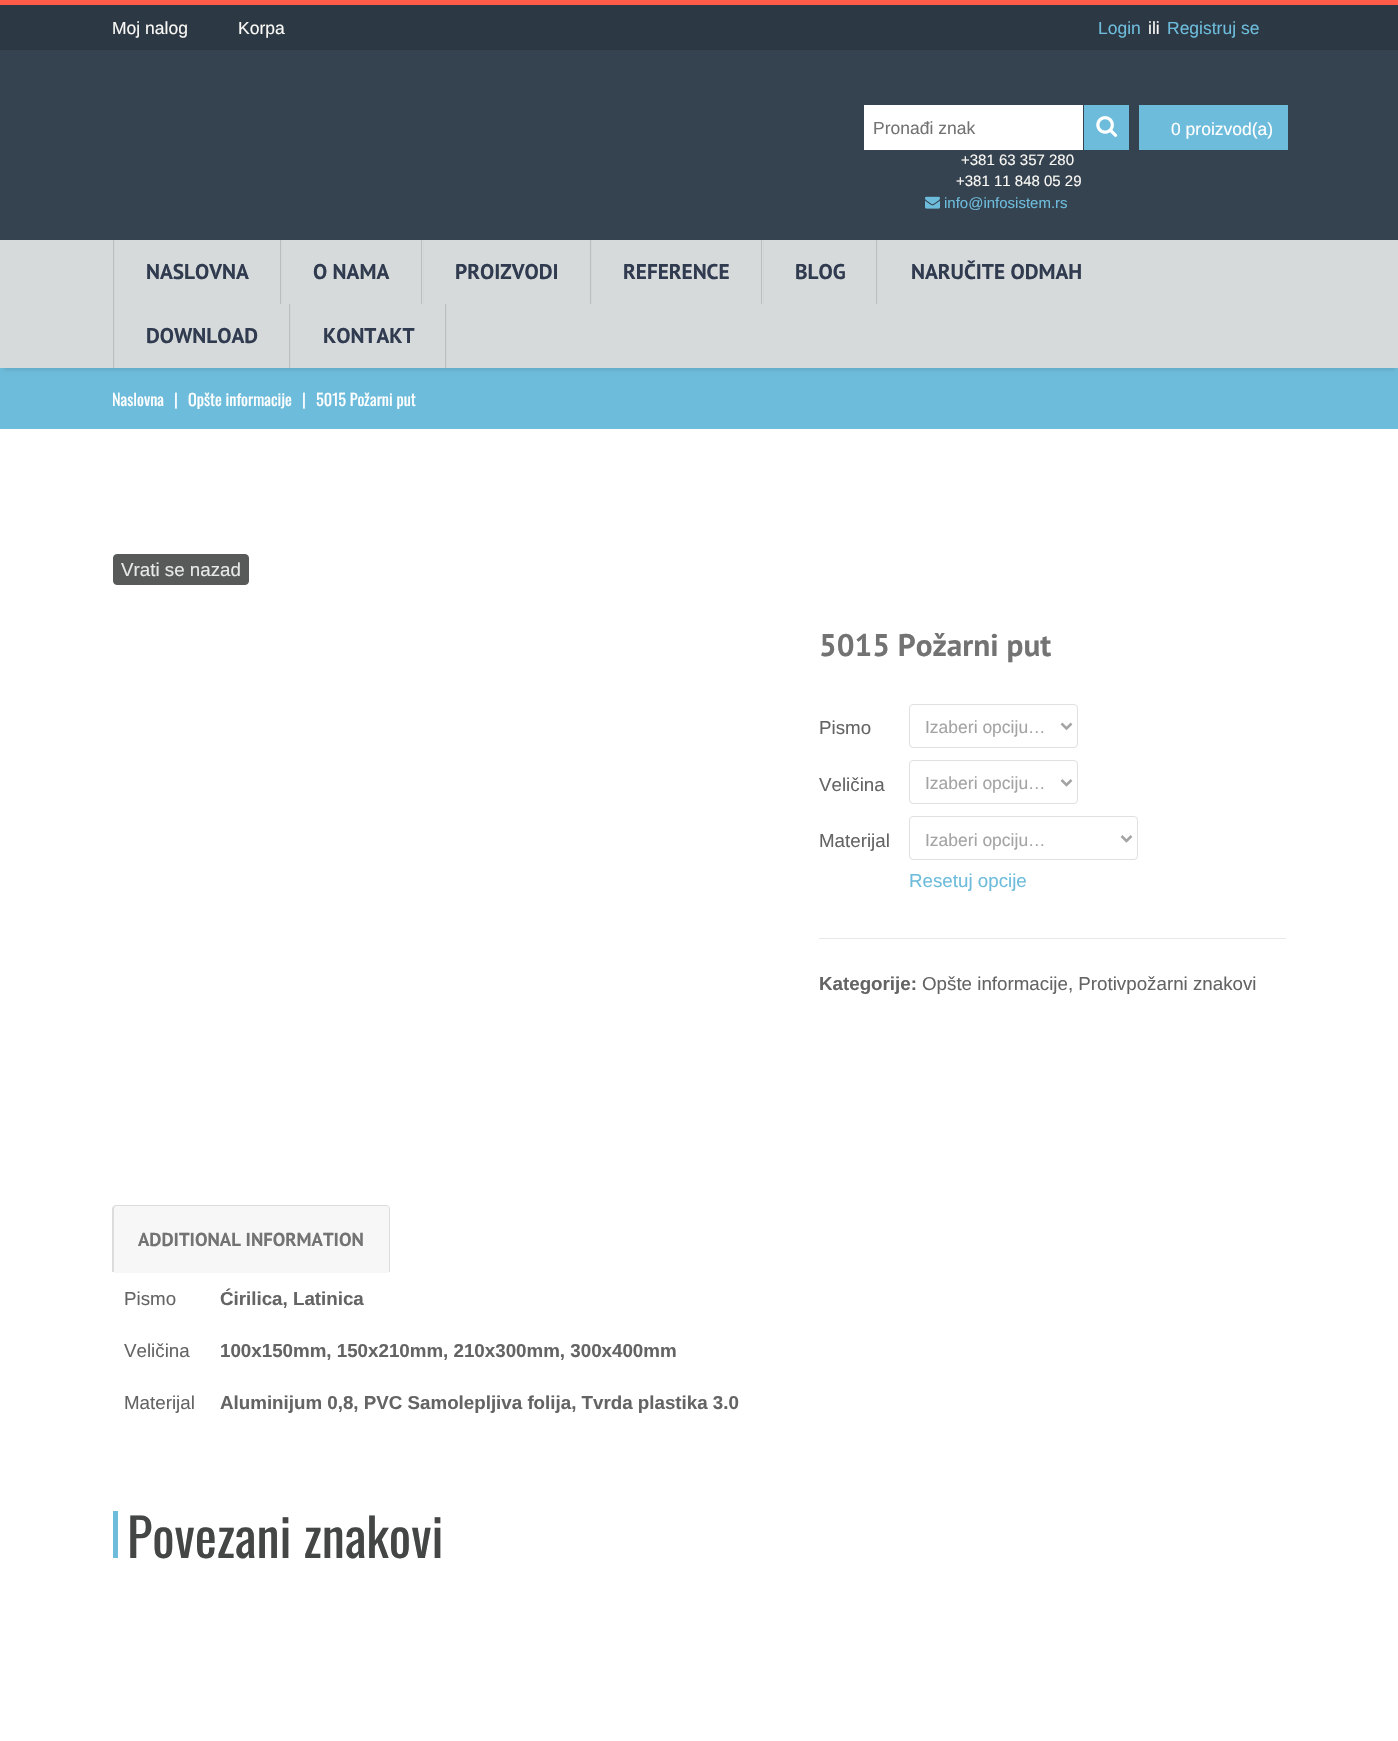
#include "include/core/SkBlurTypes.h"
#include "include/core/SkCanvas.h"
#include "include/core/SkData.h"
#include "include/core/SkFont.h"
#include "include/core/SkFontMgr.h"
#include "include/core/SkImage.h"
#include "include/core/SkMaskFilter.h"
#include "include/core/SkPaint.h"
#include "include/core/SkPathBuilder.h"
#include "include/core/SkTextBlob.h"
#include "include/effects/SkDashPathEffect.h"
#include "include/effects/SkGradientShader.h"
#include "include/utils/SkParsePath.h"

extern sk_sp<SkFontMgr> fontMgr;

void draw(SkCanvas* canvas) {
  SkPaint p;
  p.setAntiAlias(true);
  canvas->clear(SK_ColorWHITE);
  p.setColor(SkColorSetRGB(109, 188, 219));
  canvas->drawRect(SkRect::MakeLTRB(0, 368, 1398, 429), p);
  p.setColor(SkColorSetARGB(26, 0, 0, 0));
  p.setMaskFilter(SkMaskFilter::MakeBlur(kNormal_SkBlurStyle, 2));
  canvas->drawRect(SkRect::MakeLTRB(4, 10, 1395, 370), p);
  p.setMaskFilter(nullptr);
  p.setColor(SkColorSetRGB(45, 56, 69));
  canvas->drawRect(SkRect::MakeLTRB(0, 5, 1398, 50), p);
  p.setColor(SkColorSetRGB(253, 92, 72));
  canvas->drawRect(SkRect::MakeLTRB(0, 0, 1398, 5), p);
  p.setColor(SkColorSetRGB(53, 66, 79));
  canvas->drawRect(SkRect::MakeLTRB(0, 50, 1398, 240), p);
  p.setColor(SK_ColorWHITE);
  canvas->drawRect(SkRect::MakeLTRB(864, 105, 1083, 150), p);
  p.setColor(SkColorSetRGB(109, 188, 219));
  canvas->drawRect(SkRect::MakeLTRB(1084, 105, 1129, 150), p);
  canvas->drawImageRect(SkImages::DeferredFromEncodedData(SkData::MakeFromFileName("images/1.png")), SkRect::MakeLTRB(1096, 116, 1118, 137), SkSamplingOptions());
  canvas->drawRect(SkRect::MakeLTRB(1139, 105, 1288, 150), p);
  canvas->drawImageRect(SkImages::DeferredFromEncodedData(SkData::MakeFromFileName("images/2.png")), SkRect::MakeLTRB(925, 196, 940, 209), SkSamplingOptions());
  p.setColor(SkColorSetRGB(214, 218, 219));
  canvas->drawRect(SkRect::MakeLTRB(0, 240, 1398, 368), p);
  p.setColor(SkColorSetRGB(186, 190, 191));
  canvas->drawRect(SkRect::MakeLTRB(113, 240, 114, 368), p);
  p.setColor(SkColorSetRGB(211, 214, 215));
  canvas->drawRect(SkRect::MakeLTRB(114, 240, 115, 368), p);
  p.setColor(SkColorSetRGB(186, 190, 191));
  canvas->drawRect(SkRect::MakeLTRB(280, 240, 281, 304), p);
  p.setColor(SkColorSetRGB(211, 214, 215));
  canvas->drawRect(SkRect::MakeLTRB(281, 240, 282, 304), p);
  p.setColor(SkColorSetRGB(186, 190, 191));
  canvas->drawRect(SkRect::MakeLTRB(421, 240, 422, 304), p);
  p.setColor(SkColorSetRGB(211, 214, 215));
  canvas->drawRect(SkRect::MakeLTRB(423, 240, 424, 304), p);
  p.setColor(SkColorSetRGB(186, 190, 191));
  canvas->drawRect(SkRect::MakeLTRB(590, 240, 591, 304), p);
  p.setColor(SkColorSetRGB(211, 214, 215));
  canvas->drawRect(SkRect::MakeLTRB(591, 240, 592, 304), p);
  p.setColor(SkColorSetRGB(186, 190, 191));
  canvas->drawRect(SkRect::MakeLTRB(761, 240, 762, 304), p);
  p.setColor(SkColorSetRGB(211, 214, 215));
  canvas->drawRect(SkRect::MakeLTRB(763, 240, 764, 304), p);
  p.setColor(SkColorSetRGB(186, 190, 191));
  canvas->drawRect(SkRect::MakeLTRB(876, 240, 877, 304), p);
  p.setColor(SkColorSetRGB(211, 214, 215));
  canvas->drawRect(SkRect::MakeLTRB(878, 240, 879, 304), p);
  canvas->drawRect(SkRect::MakeLTRB(446, 304, 447, 368), p);
  p.setColor(SkColorSetRGB(186, 190, 191));
  canvas->drawRect(SkRect::MakeLTRB(289, 304, 290, 368), p);
  canvas->drawRect(SkRect::MakeLTRB(445, 304, 446, 368), p);
  p.setColor(SkColorSetRGB(211, 214, 215));
  canvas->drawRect(SkRect::MakeLTRB(290, 304, 291, 368), p);
  p.setColor(SkColorSetRGB(87, 90, 89));
  canvas->drawRoundRect(SkRect::MakeLTRB(113.5f, 554.5f, 248.5f, 584.5f), 3.5f, 3.5f, p);
  p.setStyle(SkPaint::kStroke_Style);
  p.setStrokeWidth(1);
  canvas->drawRoundRect(SkRect::MakeLTRB(113.5f, 554.5f, 248.5f, 584.5f), 3.5f, 3.5f, p);
  p.setColor(SkColorSetRGB(224, 224, 224));
  canvas->drawRoundRect(SkRect::MakeLTRB(909.5f, 704.5f, 1077.5f, 747.5f), 3.5f, 3.5f, p);
  p.setStrokeWidth(2.5f);
  p.setColor(SkColorSetRGB(164, 164, 164));
  canvas->drawPath(SkPathBuilder().moveTo(1061.5f, 723.5f).lineTo(1066.5f, 728.5f).lineTo(1071.5f, 723.5f).detach(), p);
  p.setStrokeWidth(1);
  p.setColor(SkColorSetRGB(224, 224, 224));
  canvas->drawRoundRect(SkRect::MakeLTRB(909.5f, 760.5f, 1077.5f, 803.5f), 3.5f, 3.5f, p);
  p.setStrokeWidth(2.5f);
  p.setColor(SkColorSetRGB(164, 164, 164));
  canvas->drawPath(SkPathBuilder().moveTo(1061.5f, 780).lineTo(1066.5f, 785).lineTo(1071.5f, 780).detach(), p);
  p.setStrokeWidth(1);
  p.setColor(SkColorSetRGB(224, 224, 224));
  canvas->drawRoundRect(SkRect::MakeLTRB(909.5f, 816.5f, 1137.5f, 859.5f), 3.5f, 3.5f, p);
  p.setStrokeWidth(2.5f);
  p.setColor(SkColorSetRGB(164, 164, 164));
  canvas->drawPath(SkPathBuilder().moveTo(1121.5f, 836).lineTo(1126.5f, 841).lineTo(1131.5f, 836).detach(), p);
  p.setStyle(SkPaint::kFill_Style);
  p.setColor(SkColorSetRGB(232, 232, 232));
  canvas->drawRect(SkRect::MakeLTRB(819, 938, 1286, 939), p);
  p.setColor(SkColorSetRGB(247, 247, 247));
  canvas->drawPath(SkPathBuilder().moveTo(116.5f, 1206).lineTo(386.5f, 1206).cubicTo(388, 1206, 389, 1207, 389, 1208.5f).lineTo(389, 1273).lineTo(114, 1273).lineTo(114, 1208.5f).cubicTo(114, 1207, 115, 1206, 116.5f, 1206).close().detach(), p);
  p.setColor(SkColorSetRGB(220, 220, 220));
  canvas->drawPath(SkPathBuilder(SkPathFillType::kEvenOdd).moveTo(116, 1205).lineTo(386, 1205).cubicTo(388, 1205, 390, 1207, 390, 1209).lineTo(390, 1272).lineTo(112, 1272).lineTo(112, 1209).cubicTo(112, 1207, 114, 1205, 116, 1205).close().moveTo(116, 1206).lineTo(386, 1206).cubicTo(388, 1206, 389, 1207, 389, 1209).lineTo(389, 1272).lineTo(114, 1272).lineTo(114, 1209).cubicTo(114, 1207, 115, 1206, 116, 1206).close().detach(), p);
  p.setColor(SkColorSetRGB(109, 188, 219));
  canvas->drawRect(SkRect::MakeLTRB(113, 1511, 118, 1558), p);
  SkFont font1(fontMgr->matchFamilyStyle("Liberation Sans", SkFontStyle::Normal()), 17.5f);
  font1.setSubpixel(true);
  p.setColor(SkColorSetRGB(249, 248, 244));
  canvas->drawString("Moj nalog", 112, 34, font1, p);
  canvas->drawString("Korpa", 238, 34, font1, p);
  p.setColor(SkColorSetRGB(109, 188, 219));
  canvas->drawString("Login", 1098, 34, font1, p);
  p.setColor(SkColorSetRGB(249, 248, 244));
  canvas->drawString("ili", 1148, 34, font1, p);
  p.setColor(SkColorSetRGB(109, 188, 219));
  canvas->drawString("Registruj se", 1167, 34, font1, p);
  p.setColor(SkColorSetRGB(115, 115, 115));
  canvas->drawString("Pronađi znak", 873, 134, font1, p);
  p.setColor(SK_ColorWHITE);
  canvas->drawString("0 proizvod(a)", 1171, 135, font1, p);
  SkFont font2(fontMgr->matchFamilyStyle("Liberation Sans", SkFontStyle::Normal()), 15);
  font2.setSubpixel(true);
  p.setColor(SkColorSetRGB(249, 248, 244));
  canvas->drawString("+381 63 357 280", 961, 165, font2, p);
  canvas->drawString("+381 11 848 05 29", 956, 186, font2, p);
  p.setColor(SkColorSetRGB(109, 188, 219));
  canvas->drawString("info@infosistem.rs", 944, 208, font2, p);
  SkFont font3(fontMgr->matchFamilyStyle("PT Sans", SkFontStyle::Bold()), 21.25f);
  font3.setSubpixel(true);
  p.setColor(SkColorSetRGB(48, 59, 80));
  canvas->drawString("NASLOVNA", 146, 279, font3, p);
  canvas->drawString("O NAMA", 313, 279, font3, p);
  canvas->drawString("PROIZVODI", 455, 279, font3, p);
  canvas->drawString("REFERENCE", 623, 279, font3, p);
  canvas->drawString("BLOG", 795, 279, font3, p);
  canvas->drawString("NARUČITE ODMAH", 911, 279, font3, p);
  canvas->drawString("DOWNLOAD", 146, 343, font3, p);
  canvas->drawString("KONTAKT", 323, 343, font3, p);
  SkFont font4(fontMgr->matchFamilyStyle("Oswald", SkFontStyle::Normal()), 16.25f);
  font4.setSubpixel(true);
  p.setColor(SK_ColorWHITE);
  canvas->drawString("Naslovna", 112, 406, font4, p);
  canvas->drawString("|", 174, 406, font4, p);
  canvas->drawString("Op", 188, 406, font4, p);
  SkFont font5(fontMgr->matchFamilyStyle("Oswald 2", SkFontStyle::Normal()), 16.25f);
  font5.setSubpixel(true);
  canvas->drawString("š", 204, 406, font5, p);
  canvas->drawString("te informacije", 210, 406, font4, p);
  canvas->drawString("|", 302, 406, font4, p);
  canvas->drawString("5015 Po", 316, 406, font4, p);
  canvas->drawString("ž", 364, 406, font5, p);
  canvas->drawString("arni put", 370, 406, font4, p);
  SkFont font6(fontMgr->matchFamilyStyle("Liberation Sans", SkFontStyle::Normal()), 18.75f);
  font6.setSubpixel(true);
  p.setColor(SkColorSetRGB(232, 232, 232));
  canvas->drawString("Vrati se nazad", 121, 576, font6, p);
  SkFont font7(fontMgr->matchFamilyStyle("PT Sans", SkFontStyle::Bold()), 31.25f);
  font7.setSubpixel(true);
  p.setColor(SkColorSetRGB(115, 115, 115));
  canvas->drawString("5015 Požarni put", 819, 656, font7, p);
  p.setColor(SkColorSetRGB(100, 100, 100));
  canvas->drawString("Pismo", 819, 734, font6, p);
  p.setColor(SkColorSetRGB(164, 164, 164));
  canvas->drawString("Izaberi opciju…", 925, 733, font1, p);
  p.setColor(SkColorSetRGB(100, 100, 100));
  canvas->drawString("Veličina", 819, 791, font6, p);
  p.setColor(SkColorSetRGB(164, 164, 164));
  canvas->drawString("Izaberi opciju…", 925, 789, font1, p);
  p.setColor(SkColorSetRGB(100, 100, 100));
  canvas->drawString("Materijal", 819, 847, font6, p);
  p.setColor(SkColorSetRGB(164, 164, 164));
  canvas->drawString("Izaberi opciju…", 925, 846, font1, p);
  p.setColor(SkColorSetRGB(109, 188, 219));
  canvas->drawString("Resetuj opcije", 909, 887, font6, p);
  SkFont font8(fontMgr->matchFamilyStyle("Liberation Sans", SkFontStyle::Bold()), 18.75f);
  font8.setSubpixel(true);
  p.setColor(SkColorSetRGB(100, 100, 100));
  canvas->drawString("Kategorije:", 819, 990, font8, p);
  canvas->drawString("Opšte informacije, Protivpožarni znakovi", 922, 990, font6, p);
  SkFont font9(fontMgr->matchFamilyStyle("PT Sans", SkFontStyle::Bold()), 18.75f);
  font9.setSubpixel(true);
  p.setColor(SkColorSetRGB(115, 115, 115));
  canvas->drawString("ADDITIONAL INFORMATION", 138, 1246, font9, p);
  p.setColor(SkColorSetRGB(100, 100, 100));
  canvas->drawString("Pismo", 124, 1305, font6, p);
  canvas->drawString("Ćirilica, Latinica", 220, 1305, font8, p);
  canvas->drawString("Veličina", 124, 1357, font6, p);
  canvas->drawString("100x150mm, 150x210mm, 210x300mm, 300x400mm", 220, 1357, font8, p);
  canvas->drawString("Materijal", 124, 1409, font6, p);
  canvas->drawString("Aluminijum 0,8, PVC Samolepljiva folija, Tvrda plastika 3.0", 220, 1409, font8, p);
  SkFont font10(fontMgr->matchFamilyStyle("Oswald", SkFontStyle::Normal()), 52.5f);
  font10.setSubpixel(true);
  p.setColor(SkColorSetRGB(68, 70, 69));
  canvas->drawString("Povezani znakovi", 127, 1558, font10, p);
}
